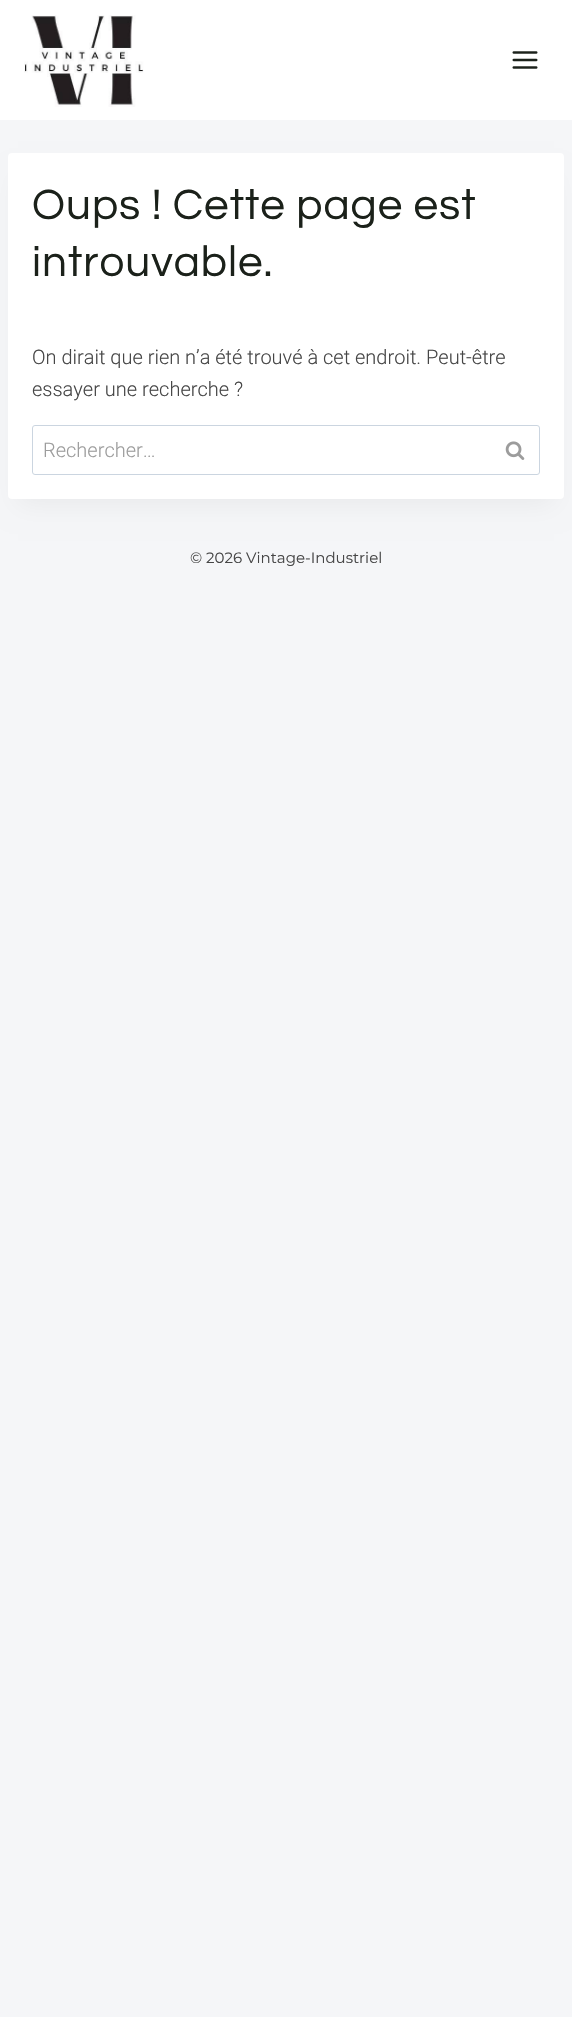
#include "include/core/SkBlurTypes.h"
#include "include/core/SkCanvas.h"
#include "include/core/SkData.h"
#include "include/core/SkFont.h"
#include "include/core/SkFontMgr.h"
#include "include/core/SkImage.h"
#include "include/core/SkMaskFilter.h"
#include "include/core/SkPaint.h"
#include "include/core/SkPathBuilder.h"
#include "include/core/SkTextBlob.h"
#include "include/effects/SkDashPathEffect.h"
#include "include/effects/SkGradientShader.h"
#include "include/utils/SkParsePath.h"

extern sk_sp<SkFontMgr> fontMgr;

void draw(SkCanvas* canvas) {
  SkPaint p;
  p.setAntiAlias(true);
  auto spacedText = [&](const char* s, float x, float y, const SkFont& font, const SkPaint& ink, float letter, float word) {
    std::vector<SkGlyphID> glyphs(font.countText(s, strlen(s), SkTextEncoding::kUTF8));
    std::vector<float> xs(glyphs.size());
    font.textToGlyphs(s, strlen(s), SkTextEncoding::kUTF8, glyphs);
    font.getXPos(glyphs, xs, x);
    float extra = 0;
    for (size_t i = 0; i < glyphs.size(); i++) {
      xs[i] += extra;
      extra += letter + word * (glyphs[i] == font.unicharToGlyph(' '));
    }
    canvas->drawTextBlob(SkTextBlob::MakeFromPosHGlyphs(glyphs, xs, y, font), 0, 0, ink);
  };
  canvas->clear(SkColorSetRGB(245, 246, 248));
  p.setColor(SK_ColorWHITE);
  canvas->drawRect(SkRect::MakeLTRB(0, 0, 572, 120), p);
  canvas->drawImageRect(SkImages::DeferredFromEncodedData(SkData::MakeFromFileName("images/1.png")), SkRect::MakeLTRB(24, 15, 144, 107), SkSamplingOptions());
  canvas->drawImageRect(SkImages::DeferredFromEncodedData(SkData::MakeFromFileName("images/2.png")), SkRect::MakeLTRB(512, 51, 538, 69), SkSamplingOptions());
  p.setColor(SkColorSetARGB(13, 0, 0, 0));
  p.setMaskFilter(SkMaskFilter::MakeBlur(kNormal_SkBlurStyle, 12.5f));
  canvas->drawRect(SkRect::MakeLTRB(18, 178, 554, 504), p);
  p.setMaskFilter(nullptr);
  p.setColor(SK_ColorWHITE);
  canvas->drawRoundRect(SkRect::MakeLTRB(8, 153, 564, 499), 4, 4, p);
  p.setStyle(SkPaint::kStroke_Style);
  p.setStrokeWidth(1);
  p.setColor(SkColorSetRGB(203, 213, 224));
  canvas->drawRoundRect(SkRect::MakeLTRB(32.5f, 425.5f, 539.5f, 474.5f), 2.5f, 2.5f, p);
  canvas->drawImageRect(SkImages::DeferredFromEncodedData(SkData::MakeFromFileName("images/3.png")), SkRect::MakeLTRB(505, 441, 525, 460), SkSamplingOptions());
  SkFont font1(fontMgr->matchFamilyStyle("Questrial", SkFontStyle::Normal()), 44);
  font1.setSubpixel(true);
  p.setStyle(SkPaint::kFill_Style);
  p.setColor(SkColorSetRGB(27, 33, 26));
  spacedText("Oups ! Cette page est", 32, 219, font1, p, 1, 0);
  spacedText("introuvable.", 32, 276, font1, p, 1, 0);
  SkFont font2(fontMgr->matchFamilyStyle("Roboto", SkFontStyle(300, SkFontStyle::kNormal_Width, SkFontStyle::kUpright_Slant)), 20);
  font2.setSubpixel(true);
  p.setColor(SkColorSetRGB(70, 70, 70));
  canvas->drawString("On dirait que rien n’a été trouvé à cet endroit. Peut-être", 32, 364, font2, p);
  canvas->drawString("essayer une recherche ?", 32, 396, font2, p);
  p.setColor(SkColorSetRGB(156, 156, 156));
  canvas->drawString("Rechercher…", 43, 457, font2, p);
  SkFont font3(fontMgr->matchFamilyStyle("Montserrat", SkFontStyle::Normal()), 15);
  font3.setSubpixel(true);
  p.setColor(SkColorSetRGB(70, 70, 70));
  canvas->drawString("© 2026 Vintage-Industriel", 190, 563, font3, p);
}
